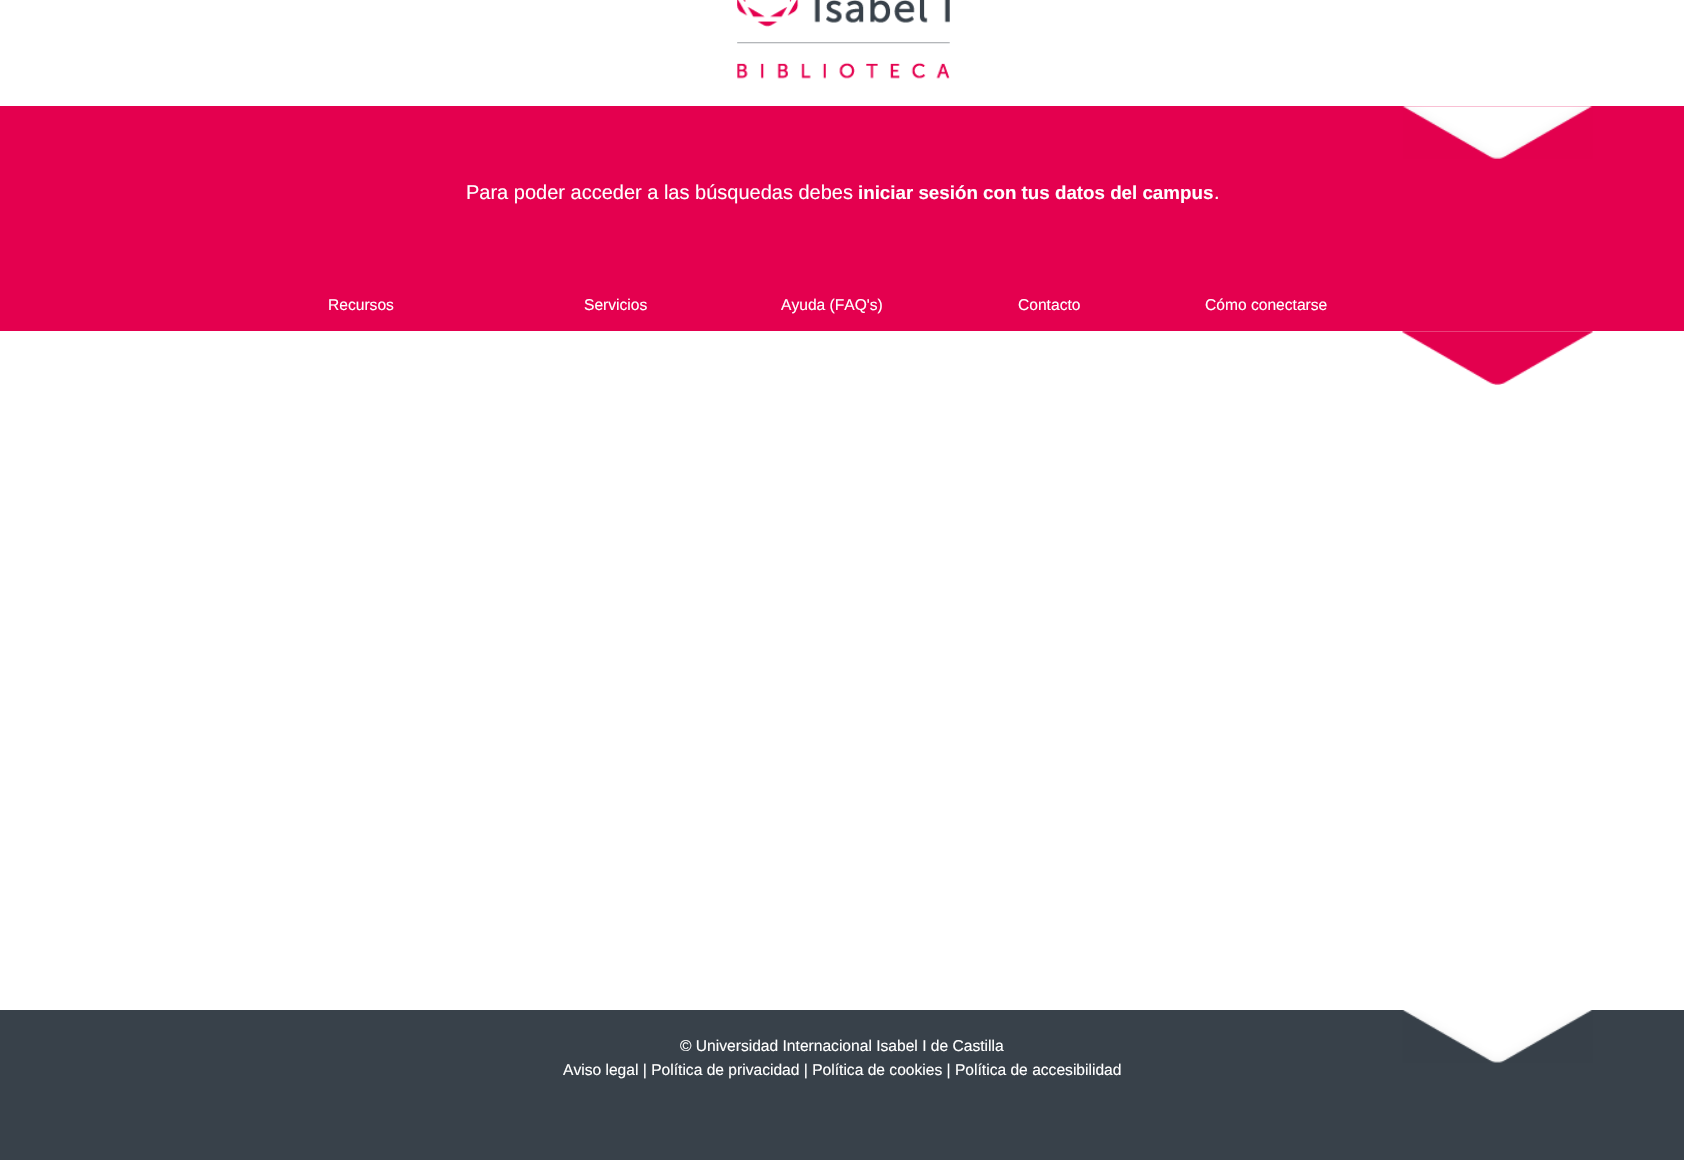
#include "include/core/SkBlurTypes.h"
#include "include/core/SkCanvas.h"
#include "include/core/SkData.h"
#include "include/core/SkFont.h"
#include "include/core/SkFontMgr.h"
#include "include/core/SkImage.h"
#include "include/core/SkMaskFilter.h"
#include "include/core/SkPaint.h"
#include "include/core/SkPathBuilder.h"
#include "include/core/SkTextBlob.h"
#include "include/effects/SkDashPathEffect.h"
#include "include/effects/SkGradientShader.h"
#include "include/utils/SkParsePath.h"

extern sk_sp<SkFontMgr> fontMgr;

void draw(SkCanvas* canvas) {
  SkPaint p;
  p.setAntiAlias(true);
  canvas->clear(SK_ColorWHITE);
  canvas->drawImageRect(SkImages::DeferredFromEncodedData(SkData::MakeFromFileName("images/1.png")), SkRect::MakeLTRB(737, 0, 950, 79), SkSamplingOptions());
  p.setColor(SkColorSetRGB(228, 0, 79));
  canvas->drawRect(SkRect::MakeLTRB(0, 106, 1684, 331), p);
  canvas->drawImageRect(SkImages::DeferredFromEncodedData(SkData::MakeFromFileName("images/2.png")), SkRect::MakeLTRB(1402, 106, 1593, 159), SkSamplingOptions());
  canvas->drawImageRect(SkImages::DeferredFromEncodedData(SkData::MakeFromFileName("images/3.png")), SkRect::MakeLTRB(1402, 331, 1593, 385), SkSamplingOptions());
  p.setColor(SkColorSetRGB(56, 65, 74));
  canvas->drawRect(SkRect::MakeLTRB(0, 1010, 1684, 1160), p);
  canvas->drawImageRect(SkImages::DeferredFromEncodedData(SkData::MakeFromFileName("images/4.png")), SkRect::MakeLTRB(1402, 1010, 1593, 1063), SkSamplingOptions());
  SkFont font1(fontMgr->matchFamilyStyle("Liberation Sans", SkFontStyle::Normal()), 20);
  font1.setSubpixel(true);
  p.setColor(SK_ColorWHITE);
  canvas->drawString("Para poder acceder a las búsquedas debes", 466, 199, font1, p);
  SkFont font2(fontMgr->matchFamilyStyle("Liberation Sans", SkFontStyle::Bold()), 18.75f);
  font2.setSubpixel(true);
  canvas->drawString("iniciar sesión con tus datos del campus", 858, 199, font2, p);
  canvas->drawString(".", 1214, 199, font1, p);
  SkFont font3(fontMgr->matchFamilyStyle("Liberation Sans", SkFontStyle::Normal()), 15.6f);
  font3.setSubpixel(true);
  canvas->drawString("Recursos", 328, 310, font3, p);
  canvas->drawString("Servicios", 584, 310, font3, p);
  canvas->drawString("Ayuda (FAQ's)", 781, 310, font3, p);
  canvas->drawString("Contacto", 1018, 310, font3, p);
  canvas->drawString("Cómo conectarse", 1205, 310, font3, p);
  canvas->drawString("© Universidad Internacional Isabel I de Castilla", 680, 1051, font3, p);
  canvas->drawString("Aviso legal | Política de privacidad | Política de cookies | Política de accesibilidad", 563, 1075, font3, p);
}
